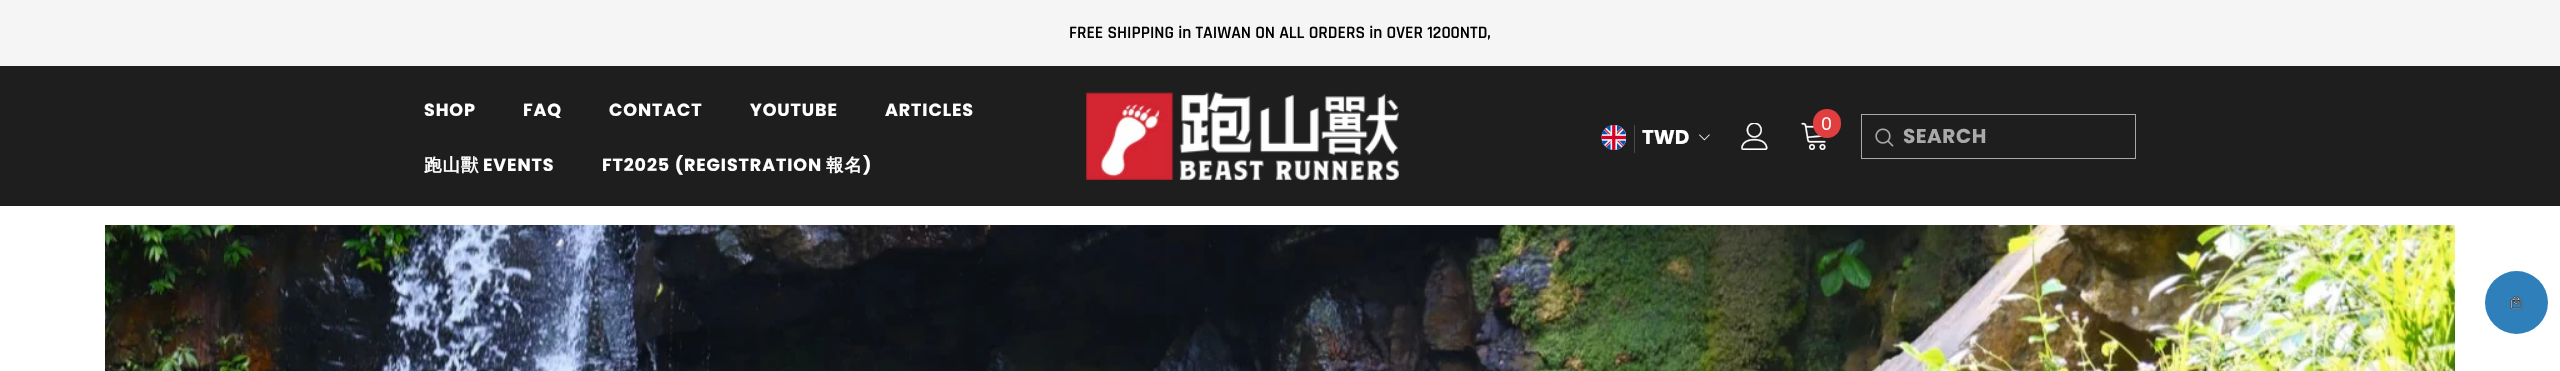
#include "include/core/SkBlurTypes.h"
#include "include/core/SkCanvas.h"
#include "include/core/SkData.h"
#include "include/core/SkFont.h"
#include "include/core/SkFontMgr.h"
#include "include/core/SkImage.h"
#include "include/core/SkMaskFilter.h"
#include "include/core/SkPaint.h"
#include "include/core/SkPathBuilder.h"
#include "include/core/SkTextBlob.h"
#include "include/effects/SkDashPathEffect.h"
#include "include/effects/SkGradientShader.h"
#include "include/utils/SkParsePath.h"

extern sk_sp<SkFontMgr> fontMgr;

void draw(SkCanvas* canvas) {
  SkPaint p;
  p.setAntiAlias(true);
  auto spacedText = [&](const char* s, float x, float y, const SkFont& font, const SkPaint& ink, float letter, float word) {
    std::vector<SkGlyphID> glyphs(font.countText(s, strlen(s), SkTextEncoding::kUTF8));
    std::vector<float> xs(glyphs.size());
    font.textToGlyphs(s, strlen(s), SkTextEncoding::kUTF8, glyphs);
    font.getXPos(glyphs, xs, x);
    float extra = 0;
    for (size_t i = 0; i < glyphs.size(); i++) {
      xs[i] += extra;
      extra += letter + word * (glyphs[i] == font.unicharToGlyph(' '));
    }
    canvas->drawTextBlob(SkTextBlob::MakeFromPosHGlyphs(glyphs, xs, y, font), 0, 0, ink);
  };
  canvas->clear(SK_ColorWHITE);
  p.setColor(SkColorSetRGB(245, 245, 245));
  canvas->drawRect(SkRect::MakeLTRB(0, 0, 2560, 66), p);
  p.setColor(SkColorSetRGB(30, 30, 30));
  canvas->drawRect(SkRect::MakeLTRB(0, 66, 2560, 206), p);
  canvas->drawImageRect(SkImages::DeferredFromEncodedData(SkData::MakeFromFileName("images/1.png")), SkRect::MakeLTRB(1086, 92, 1399, 180), SkSamplingOptions());
  canvas->drawImageRect(SkImages::DeferredFromEncodedData(SkData::MakeFromFileName("images/2.png")), SkRect::MakeLTRB(1601, 125, 1626, 150), SkSamplingOptions());
  p.setColor(SkColorSetRGB(75, 75, 75));
  canvas->drawRect(SkRect::MakeLTRB(1634, 125, 1635, 153), p);
  canvas->drawImageRect(SkImages::DeferredFromEncodedData(SkData::MakeFromFileName("images/3.png")), SkRect::MakeLTRB(1699, 134, 1710, 141), SkSamplingOptions());
  canvas->drawImageRect(SkImages::DeferredFromEncodedData(SkData::MakeFromFileName("images/4.png")), SkRect::MakeLTRB(1741, 123, 1768, 150), SkSamplingOptions());
  canvas->drawImageRect(SkImages::DeferredFromEncodedData(SkData::MakeFromFileName("images/5.png")), SkRect::MakeLTRB(1801, 122, 1826, 150), SkSamplingOptions());
  p.setColor(SkColorSetRGB(225, 63, 63));
  canvas->drawRoundRect(SkRect::MakeLTRB(1813, 109, 1841, 138), 14, 14, p);
  p.setStyle(SkPaint::kStroke_Style);
  p.setStrokeWidth(1);
  p.setColor(SkColorSetRGB(169, 169, 169));
  canvas->drawRect(SkRect::MakeLTRB(1861.5f, 114.5f, 2135.5f, 158.5f), p);
  canvas->drawImageRect(SkImages::DeferredFromEncodedData(SkData::MakeFromFileName("images/6.png")), SkRect::MakeLTRB(1875, 128, 1894, 147), SkSamplingOptions());
  canvas->drawImageRect(SkImages::DeferredFromEncodedData(SkData::MakeFromFileName("images/7.png")), SkRect::MakeLTRB(105, 225, 2455, 371), SkSamplingOptions());
  p.setStyle(SkPaint::kFill_Style);
  p.setColor(SkColorSetRGB(47, 127, 187));
  canvas->drawCircle(2516.5f, 302.5f, 31.5f, p);
  canvas->drawImageRect(SkImages::DeferredFromEncodedData(SkData::MakeFromFileName("images/8.png")), SkRect::MakeLTRB(2510, 296, 2522, 309), SkSamplingOptions());
  SkFont font1(fontMgr->matchFamilyStyle("Rajdhani", SkFontStyle(600, SkFontStyle::kNormal_Width, SkFontStyle::kUpright_Slant)), 17.5f);
  font1.setSubpixel(true);
  p.setColor(SK_ColorBLACK);
  canvas->drawString("FREE SHIPPING in TAIWAN ON ALL ORDERS in OVER 1200NTD,", 1069, 38, font1, p);
  SkFont font2(fontMgr->matchFamilyStyle("Poppins", SkFontStyle::Bold()), 17.5f);
  font2.setSubpixel(true);
  p.setColor(SK_ColorWHITE);
  spacedText("SHOP", 424, 116, font2, p, 0.9f, 0);
  spacedText("FAQ", 523, 116, font2, p, 0.9f, 0);
  spacedText("CONTACT", 609, 116, font2, p, 0.9f, 0);
  spacedText("YOUTUBE", 750, 116, font2, p, 0.9f, 0);
  spacedText("ARTICLES", 885, 116, font2, p, 0.9f, 0);
  SkFont font3(fontMgr->matchFamilyStyle("WenQuanYi Zen Hei", SkFontStyle::Bold()), 17.5f);
  font3.setSubpixel(true);
  spacedText("跑山獸", 424, 171, font3, p, 0.9f, 0);
  spacedText("EVENTS", 483, 171, font2, p, 0.9f, 0);
  spacedText("FT2025 (REGISTRATION", 602, 171, font2, p, 0.9f, 0);
  spacedText("報名", 826, 171, font3, p, 0.9f, 0);
  spacedText(")", 863, 171, font2, p, 0.9f, 0);
  SkFont font4(fontMgr->matchFamilyStyle("Poppins", SkFontStyle::Bold()), 20);
  font4.setSubpixel(true);
  canvas->drawString("TWD", 1642, 144, font4, p);
  SkFont font5(fontMgr->matchFamilyStyle("Poppins", SkFontStyle::Normal()), 17.5f);
  font5.setSubpixel(true);
  canvas->drawString("0", 1821, 130, font5, p);
  p.setColor(SkColorSetRGB(169, 169, 169));
  spacedText("SEARCH", 1903, 143, font4, p, 0.5f, 0);
}
